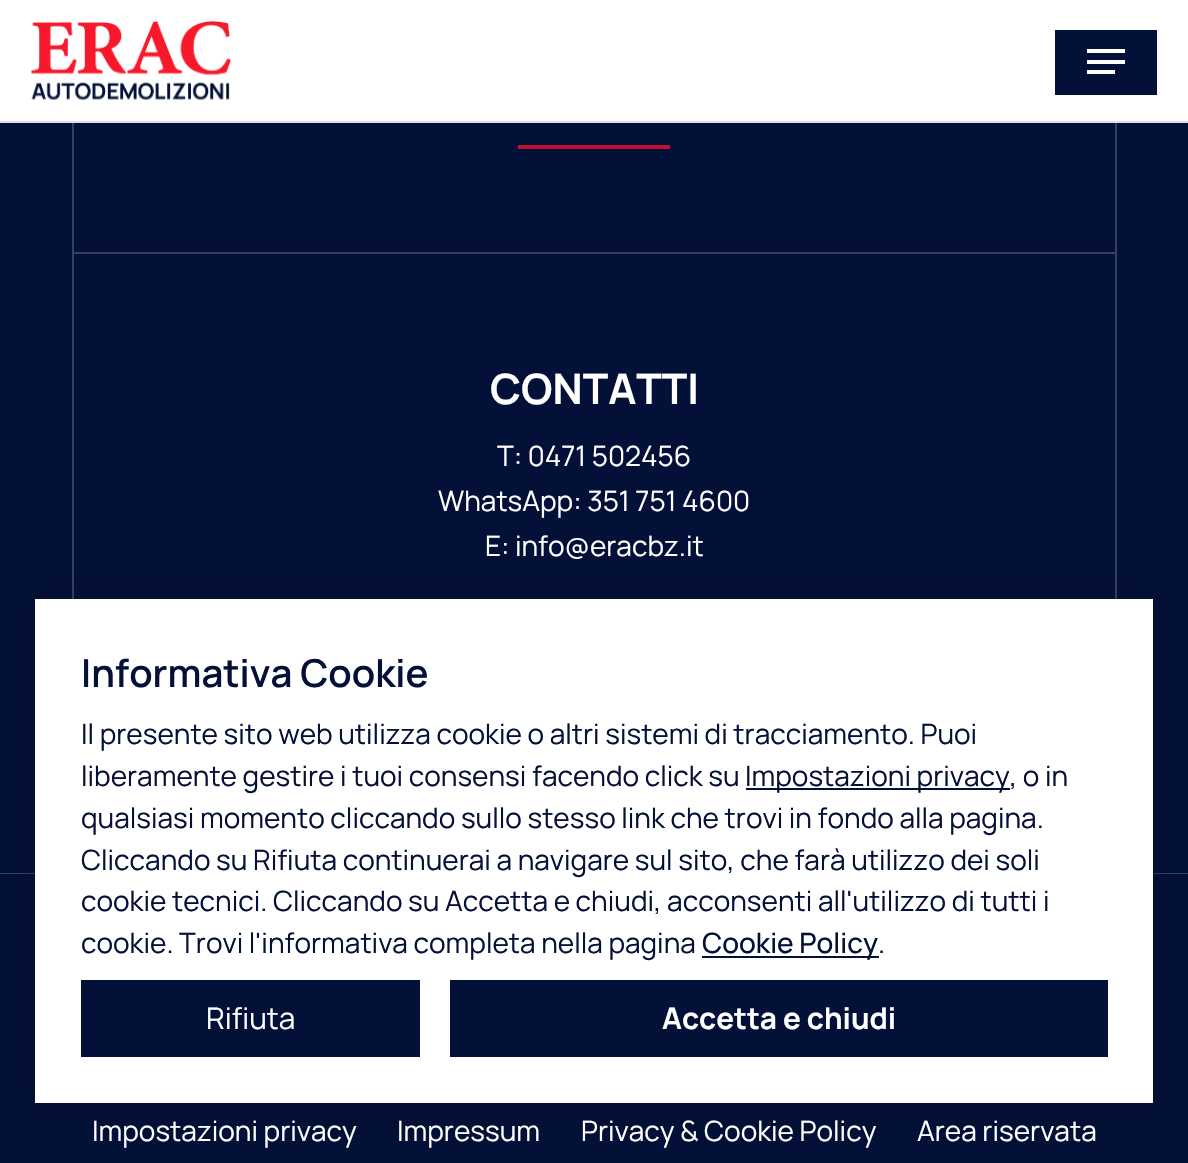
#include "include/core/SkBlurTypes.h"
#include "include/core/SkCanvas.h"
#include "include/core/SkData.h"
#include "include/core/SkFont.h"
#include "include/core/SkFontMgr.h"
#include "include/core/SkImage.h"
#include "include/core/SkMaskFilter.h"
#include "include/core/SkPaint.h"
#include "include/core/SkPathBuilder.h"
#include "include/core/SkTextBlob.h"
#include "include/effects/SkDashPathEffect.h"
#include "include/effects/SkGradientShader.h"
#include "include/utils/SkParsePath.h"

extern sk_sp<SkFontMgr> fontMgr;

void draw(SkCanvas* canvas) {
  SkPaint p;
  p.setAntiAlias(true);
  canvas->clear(SkColorSetRGB(3, 16, 55));
  p.setStyle(SkPaint::kStroke_Style);
  p.setStrokeWidth(2);
  p.setColor(SkColorSetRGB(53, 64, 95));
  canvas->drawRect(SkRect::MakeLTRB(73, -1, 1116, 773), p);
  p.setStyle(SkPaint::kFill_Style);
  p.setColor(SK_ColorWHITE);
  canvas->drawRect(SkRect::MakeLTRB(0, 0, 1188, 121), p);
  p.setColor(SkColorSetRGB(224, 224, 224));
  canvas->drawRect(SkRect::MakeLTRB(0, 121, 1188, 123), p);
  canvas->drawImageRect(SkImages::DeferredFromEncodedData(SkData::MakeFromFileName("images/1.png")), SkRect::MakeLTRB(31, 21, 231, 100), SkSamplingOptions());
  p.setColor(SkColorSetRGB(3, 16, 55));
  canvas->drawRect(SkRect::MakeLTRB(1055, 30, 1157, 95), p);
  p.setColor(SK_ColorWHITE);
  canvas->drawRect(SkRect::MakeLTRB(1087, 49, 1125, 53), p);
  canvas->drawRect(SkRect::MakeLTRB(1087, 70, 1115, 74), p);
  canvas->drawRect(SkRect::MakeLTRB(1087, 60, 1125, 64), p);
  p.setColor(SkColorSetRGB(56, 63, 94));
  canvas->drawRect(SkRect::MakeLTRB(74, 252, 1115, 254), p);
  p.setColor(SkColorSetRGB(194, 16, 52));
  canvas->drawRect(SkRect::MakeLTRB(518, 145, 670, 149), p);
  p.setColor(SkColorSetRGB(53, 64, 95));
  canvas->drawRect(SkRect::MakeLTRB(0, 873, 1188, 874), p);
  p.setColor(SkColorSetARGB(38, 0, 0, 0));
  p.setMaskFilter(SkMaskFilter::MakeBlur(kNormal_SkBlurStyle, 17.5f));
  canvas->drawRect(SkRect::MakeLTRB(35, 599, 1153, 1103), p);
  p.setMaskFilter(nullptr);
  p.setColor(SK_ColorWHITE);
  canvas->drawRect(SkRect::MakeLTRB(35, 599, 1153, 1103), p);
  p.setColor(SkColorSetRGB(3, 16, 55));
  canvas->drawRect(SkRect::MakeLTRB(746, 788, 1010, 790), p);
  canvas->drawRect(SkRect::MakeLTRB(702, 956, 879, 958), p);
  canvas->drawRect(SkRect::MakeLTRB(81, 980, 420, 1057), p);
  canvas->drawRect(SkRect::MakeLTRB(450, 980, 1108, 1057), p);
  SkFont font1(fontMgr->matchFamilyStyle("Manrope", SkFontStyle::Bold()), 42);
  font1.setSubpixel(true);
  p.setColor(SK_ColorWHITE);
  canvas->drawString("CONTATTI", 490, 404, font1, p);
  SkFont font2(fontMgr->matchFamilyStyle("Manrope", SkFontStyle::Normal()), 28);
  font2.setSubpixel(true);
  canvas->drawString("T: 0471 502456", 497, 466, font2, p);
  canvas->drawString("WhatsApp: 351 751 4600", 438, 511, font2, p);
  canvas->drawString("E: info@eracbz.it", 485, 556, font2, p);
  canvas->drawString("Impostazioni privacy", 92, 1141, font2, p);
  canvas->drawString("Impressum", 397, 1141, font2, p);
  canvas->drawString("Privacy & Cookie Policy", 581, 1141, font2, p);
  canvas->drawString("Area riservata", 917, 1141, font2, p);
  SkFont font3(fontMgr->matchFamilyStyle("Manrope", SkFontStyle(600, SkFontStyle::kNormal_Width, SkFontStyle::kUpright_Slant)), 38.5f);
  font3.setSubpixel(true);
  p.setColor(SkColorSetRGB(3, 16, 55));
  canvas->drawString("Informativa Cookie", 81, 687, font3, p);
  canvas->drawString("Il presente sito web utilizza cookie o altri sistemi di tracciamento. Puoi", 81, 744, font2, p);
  canvas->drawString("liberamente gestire i tuoi consensi facendo click su", 81, 786, font2, p);
  canvas->drawString("Impostazioni privacy, o in", 745, 786, font2, p);
  canvas->drawString("qualsiasi momento cliccando sullo stesso link che trovi in fondo alla pagina.", 81, 828, font2, p);
  canvas->drawString("Cliccando su Rifiuta continuerai a navigare sul sito, che farà utilizzo dei soli", 81, 870, font2, p);
  canvas->drawString("cookie tecnici. Cliccando su Accetta e chiudi, acconsenti all'utilizzo di tutti i", 81, 911, font2, p);
  canvas->drawString("cookie. Trovi l'informativa completa nella pagina", 81, 953, font2, p);
  SkFont font4(fontMgr->matchFamilyStyle("Manrope", SkFontStyle(500, SkFontStyle::kNormal_Width, SkFontStyle::kUpright_Slant)), 28);
  font4.setSubpixel(true);
  canvas->drawString("Cookie Policy", 702, 953, font4, p);
  canvas->drawString(".", 878, 953, font2, p);
  SkFont font5(fontMgr->matchFamilyStyle("Manrope", SkFontStyle::Normal()), 29.75f);
  font5.setSubpixel(true);
  p.setColor(SK_ColorWHITE);
  canvas->drawString("Rifiuta", 206, 1029, font5, p);
  SkFont font6(fontMgr->matchFamilyStyle("Manrope", SkFontStyle::Bold()), 29.75f);
  font6.setSubpixel(true);
  canvas->drawString("Accetta e chiudi", 662, 1029, font6, p);
}
